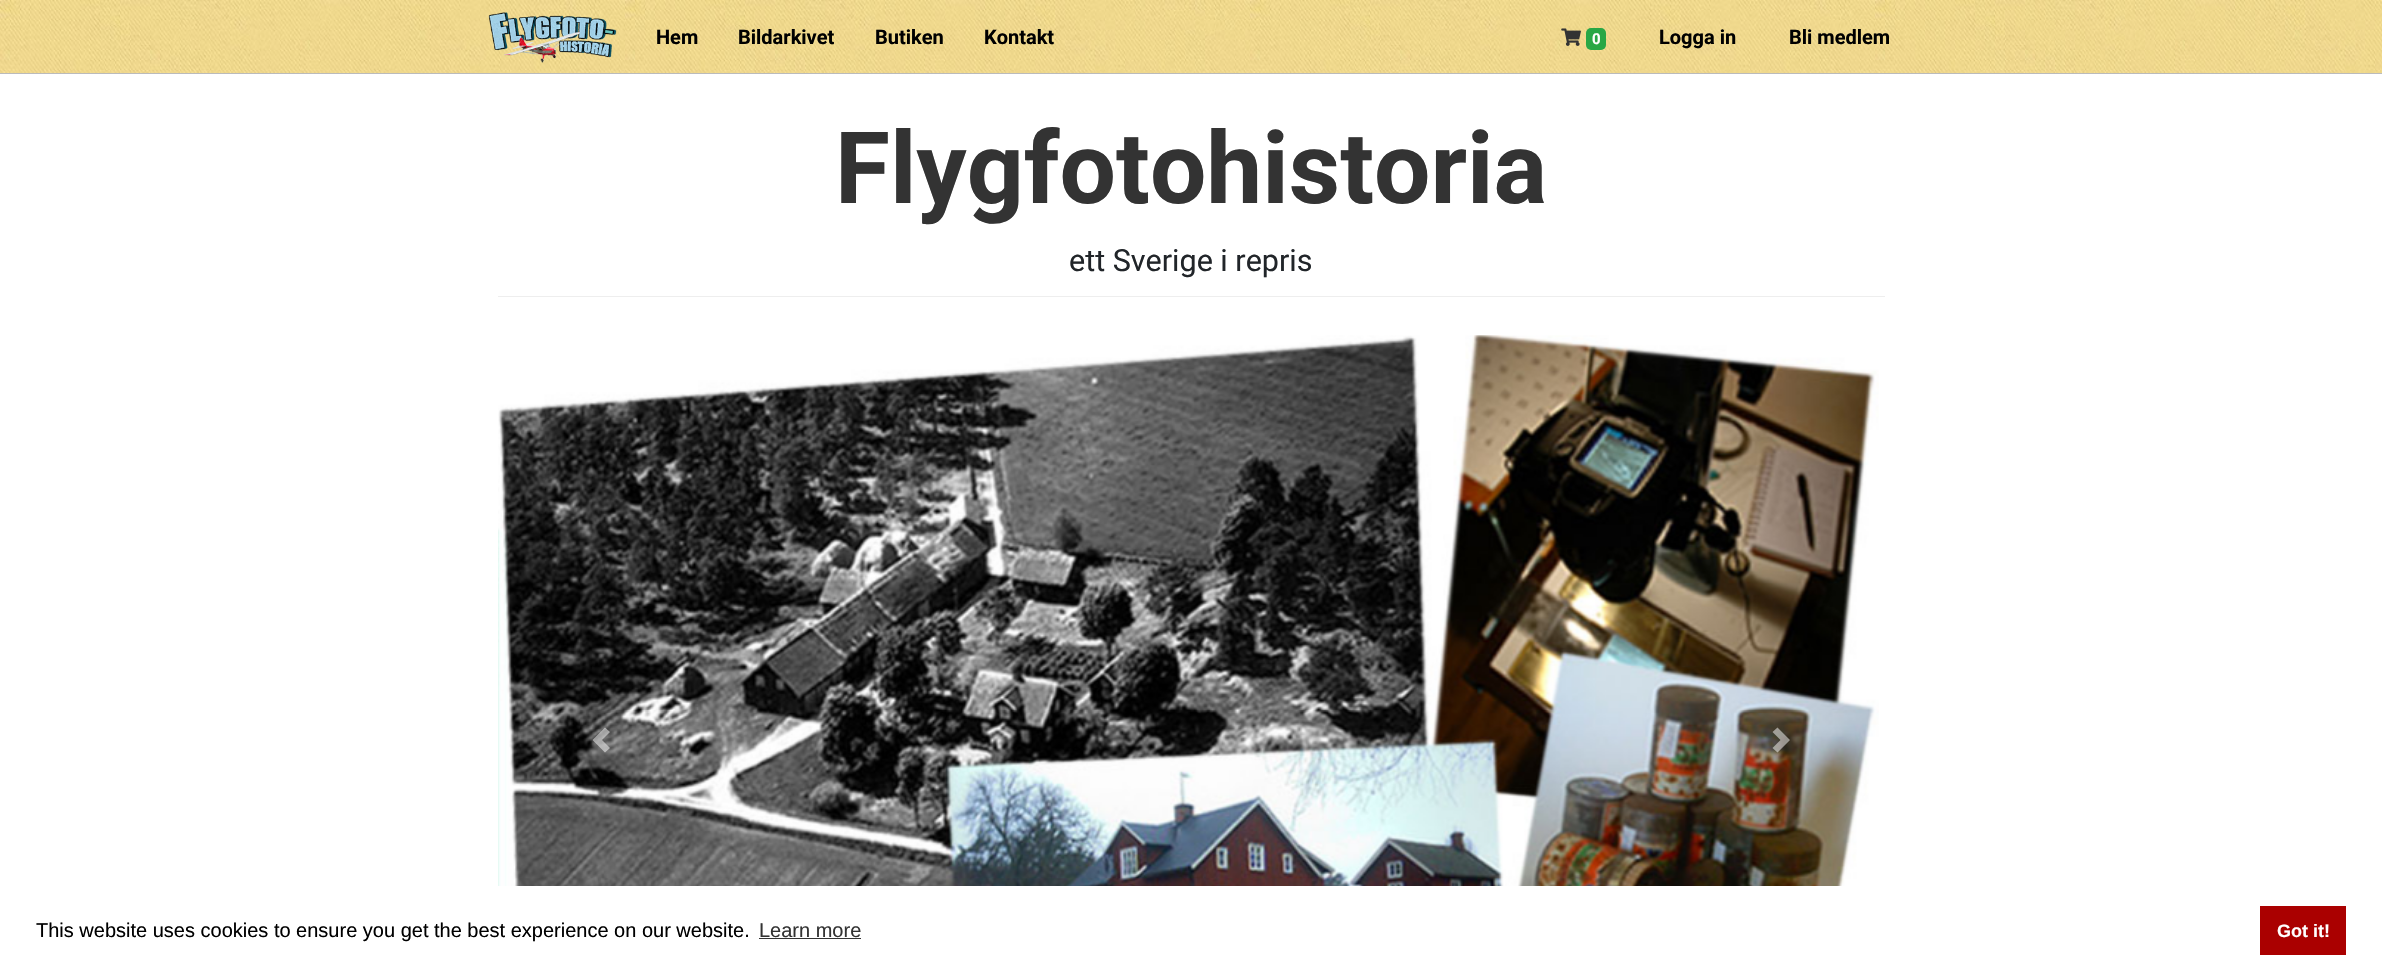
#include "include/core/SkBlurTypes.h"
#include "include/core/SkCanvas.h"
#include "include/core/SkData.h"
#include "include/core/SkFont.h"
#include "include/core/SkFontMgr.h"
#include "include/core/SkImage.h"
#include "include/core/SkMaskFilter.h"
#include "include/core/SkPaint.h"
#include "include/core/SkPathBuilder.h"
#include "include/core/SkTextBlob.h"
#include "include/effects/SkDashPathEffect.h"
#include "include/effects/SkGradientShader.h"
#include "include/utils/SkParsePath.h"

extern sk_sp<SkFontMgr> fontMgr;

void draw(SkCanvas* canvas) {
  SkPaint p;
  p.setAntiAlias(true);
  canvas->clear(SK_ColorWHITE);
  canvas->drawImageRect(SkImages::DeferredFromEncodedData(SkData::MakeFromFileName("images/1.png")), SkRect::MakeLTRB(0, 0, 2382, 73), SkSamplingOptions());
  p.setColor(SkColorSetRGB(187, 187, 187));
  canvas->drawRect(SkRect::MakeLTRB(0, 73, 2382, 74), p);
  canvas->drawImageRect(SkImages::DeferredFromEncodedData(SkData::MakeFromFileName("images/2.png")), SkRect::MakeLTRB(488, 12, 617, 63), SkSamplingOptions());
  canvas->drawImageRect(SkImages::DeferredFromEncodedData(SkData::MakeFromFileName("images/3.png")), SkRect::MakeLTRB(1561, 28, 1581, 46), SkSamplingOptions());
  p.setColor(SkColorSetRGB(40, 167, 69));
  canvas->drawRoundRect(SkRect::MakeLTRB(1586, 28, 1606, 50), 5, 5, p);
  p.setColor(SkColorSetRGB(238, 238, 238));
  canvas->drawRect(SkRect::MakeLTRB(498, 296, 1885, 297), p);
  canvas->drawImageRect(SkImages::DeferredFromEncodedData(SkData::MakeFromFileName("images/4.png")), SkRect::MakeLTRB(498, 335, 1879, 886), SkSamplingOptions());
  p.setColor(SkColorSetARGB(128, 255, 255, 255));
  canvas->drawPath(SkPathBuilder().moveTo(605, 727.5f).lineTo(592.5f, 740).lineTo(605, 752.5f).lineTo(610, 748).lineTo(602, 740).lineTo(610, 732).close().detach(), p);
  canvas->drawPath(SkPathBuilder().moveTo(1777.5f, 727.5f).lineTo(1772.5f, 732).lineTo(1780.5f, 740).lineTo(1772.5f, 748).lineTo(1777.5f, 752.5f).lineTo(1790, 740).close().detach(), p);
  p.setColor(SkColorSetRGB(51, 51, 51));
  canvas->drawRect(SkRect::MakeLTRB(759, 938, 861, 939), p);
  p.setColor(SkColorSetRGB(170, 0, 0));
  canvas->drawRect(SkRect::MakeLTRB(2260, 906, 2346, 955), p);
  SkFont font1(fontMgr->matchFamilyStyle("Roboto", SkFontStyle::Bold()), 20);
  font1.setSubpixel(true);
  p.setColor(SK_ColorBLACK);
  canvas->drawString("Hem", 656, 44, font1, p);
  canvas->drawString("Bildarkivet", 738, 44, font1, p);
  canvas->drawString("Butiken", 875, 44, font1, p);
  canvas->drawString("Kontakt", 984, 44, font1, p);
  SkFont font2(fontMgr->matchFamilyStyle("Roboto", SkFontStyle::Bold()), 15);
  font2.setSubpixel(true);
  p.setColor(SK_ColorWHITE);
  canvas->drawString("0", 1592, 44, font2, p);
  p.setColor(SK_ColorBLACK);
  canvas->drawString("Logga in", 1659, 44, font1, p);
  canvas->drawString("Bli medlem", 1789, 44, font1, p);
  SkFont font3(fontMgr->matchFamilyStyle("Roboto", SkFontStyle::Bold()), 100);
  font3.setSubpixel(true);
  p.setColor(SkColorSetRGB(51, 51, 51));
  canvas->drawString("Flygfotohistoria", 835, 203, font3, p);
  SkFont font4(fontMgr->matchFamilyStyle("Roboto", SkFontStyle::Normal()), 30.5f);
  font4.setSubpixel(true);
  p.setColor(SkColorSetRGB(33, 37, 41));
  canvas->drawString("ett Sverige i repris", 1069, 271, font4, p);
  SkFont font5(fontMgr->matchFamilyStyle("Liberation Sans", SkFontStyle::Normal()), 20);
  font5.setSubpixel(true);
  p.setColor(SK_ColorBLACK);
  canvas->drawString("This website uses cookies to ensure you get the best experience on our website.", 36, 937, font5, p);
  p.setColor(SkColorSetRGB(51, 51, 51));
  canvas->drawString("Learn more", 759, 937, font5, p);
  SkFont font6(fontMgr->matchFamilyStyle("Liberation Sans", SkFontStyle::Bold()), 18);
  font6.setSubpixel(true);
  p.setColor(SK_ColorWHITE);
  canvas->drawString("Got it!", 2277, 937, font6, p);
}
